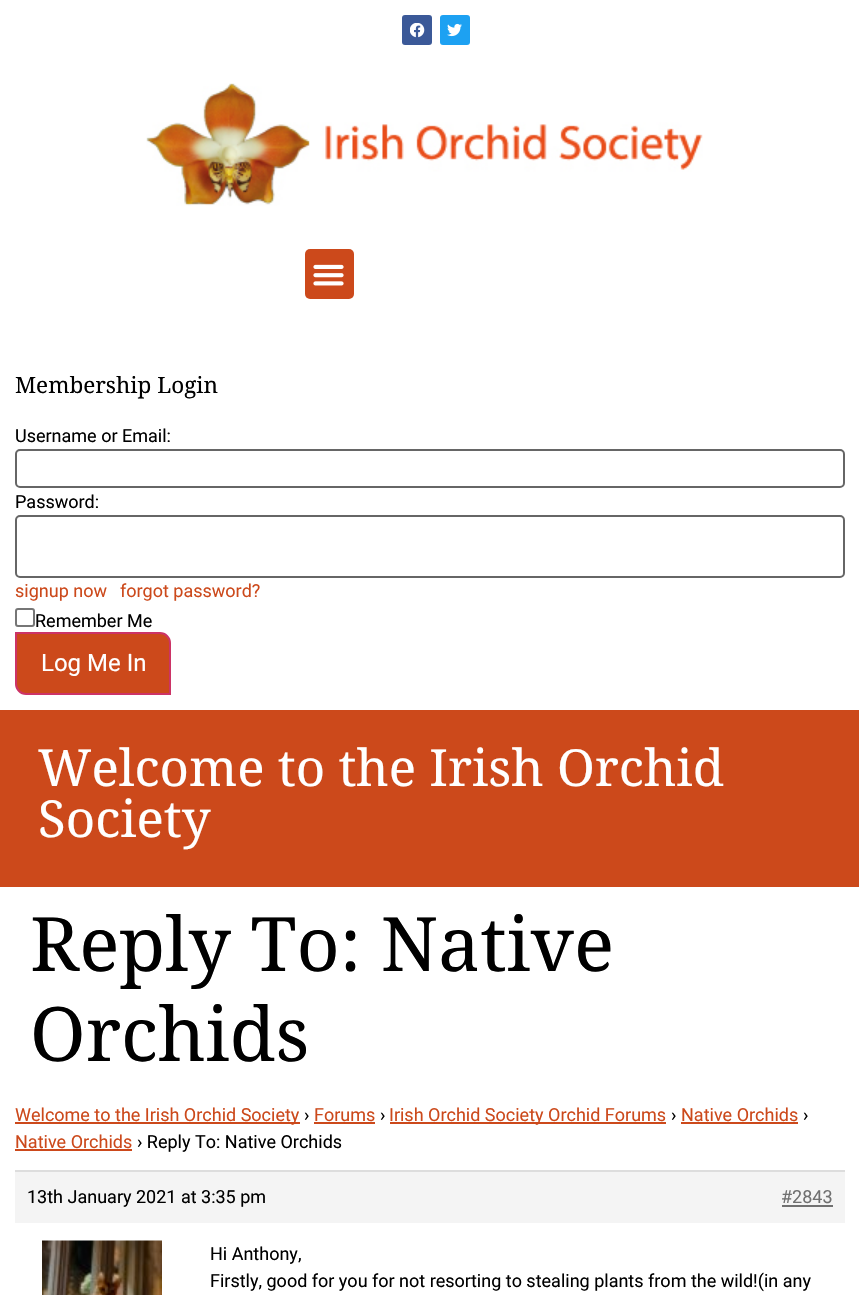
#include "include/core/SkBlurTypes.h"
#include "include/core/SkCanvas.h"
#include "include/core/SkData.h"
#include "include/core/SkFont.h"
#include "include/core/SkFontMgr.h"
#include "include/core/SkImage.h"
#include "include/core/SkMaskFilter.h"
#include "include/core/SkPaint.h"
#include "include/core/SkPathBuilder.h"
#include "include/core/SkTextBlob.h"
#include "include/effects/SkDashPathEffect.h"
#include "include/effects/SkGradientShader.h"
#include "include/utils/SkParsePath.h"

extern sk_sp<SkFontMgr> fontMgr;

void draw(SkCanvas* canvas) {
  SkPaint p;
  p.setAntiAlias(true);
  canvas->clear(SK_ColorWHITE);
  p.setColor(SkColorSetRGB(59, 89, 152));
  canvas->drawRoundRect(SkRect::MakeLTRB(402, 15, 432, 45), 3, 3, p);
  canvas->drawImageRect(SkImages::DeferredFromEncodedData(SkData::MakeFromFileName("images/1.png")), SkRect::MakeLTRB(410, 23, 425, 38), SkSamplingOptions());
  p.setColor(SkColorSetRGB(29, 161, 242));
  canvas->drawRoundRect(SkRect::MakeLTRB(440, 15, 470, 45), 3, 3, p);
  canvas->drawImageRect(SkImages::DeferredFromEncodedData(SkData::MakeFromFileName("images/2.png")), SkRect::MakeLTRB(447, 23, 462, 37), SkSamplingOptions());
  canvas->drawImageRect(SkImages::DeferredFromEncodedData(SkData::MakeFromFileName("images/3.png")), SkRect::MakeLTRB(146, 83, 703, 206), SkSamplingOptions());
  p.setColor(SkColorSetRGB(204, 73, 27));
  canvas->drawRoundRect(SkRect::MakeLTRB(305, 249, 354, 299), 5, 5, p);
  canvas->drawImageRect(SkImages::DeferredFromEncodedData(SkData::MakeFromFileName("images/4.png")), SkRect::MakeLTRB(313, 264, 344, 286), SkSamplingOptions());
  p.setStyle(SkPaint::kStroke_Style);
  p.setStrokeWidth(2);
  p.setColor(SkColorSetRGB(102, 102, 102));
  canvas->drawRoundRect(SkRect::MakeLTRB(16, 450, 844, 487), 4, 4, p);
  canvas->drawRoundRect(SkRect::MakeLTRB(16, 516, 844, 577), 4, 4, p);
  p.setColor(SkColorSetRGB(118, 118, 118));
  canvas->drawRoundRect(SkRect::MakeLTRB(16, 609, 34, 626), 2, 2, p);
  p.setStyle(SkPaint::kFill_Style);
  p.setColor(SkColorSetRGB(204, 73, 27));
  canvas->drawPath(SkPathBuilder().moveTo(16, 633).lineTo(160, 633).cubicTo(165.5f, 633, 170, 637.5f, 170, 643).lineTo(170, 694).lineTo(26, 694).cubicTo(20.5f, 694, 16, 689.5f, 16, 684).close().detach(), p);
  p.setStyle(SkPaint::kStroke_Style);
  p.setColor(SkColorSetRGB(204, 51, 102));
  canvas->drawPath(SkPathBuilder().moveTo(16, 633).lineTo(160, 633).cubicTo(165.5f, 633, 170, 637.5f, 170, 643).lineTo(170, 694).lineTo(26, 694).cubicTo(20.5f, 694, 16, 689.5f, 16, 684).close().detach(), p);
  p.setStyle(SkPaint::kFill_Style);
  p.setColor(SkColorSetRGB(204, 73, 27));
  canvas->drawRect(SkRect::MakeLTRB(0, 710, 859, 887), p);
  canvas->drawRect(SkRect::MakeLTRB(15, 1122, 300, 1124), p);
  canvas->drawRect(SkRect::MakeLTRB(314, 1122, 375, 1124), p);
  canvas->drawRect(SkRect::MakeLTRB(390, 1122, 666, 1124), p);
  canvas->drawRect(SkRect::MakeLTRB(681, 1122, 798, 1124), p);
  canvas->drawRect(SkRect::MakeLTRB(15, 1149, 132, 1151), p);
  p.setColor(SkColorSetRGB(244, 244, 244));
  canvas->drawRect(SkRect::MakeLTRB(15, 1172, 845, 1223), p);
  p.setColor(SkColorSetRGB(221, 221, 221));
  canvas->drawRect(SkRect::MakeLTRB(15, 1170, 845, 1172), p);
  p.setColor(SkColorSetRGB(112, 112, 112));
  canvas->drawRect(SkRect::MakeLTRB(782, 1205, 833, 1207), p);
  canvas->drawImageRect(SkImages::DeferredFromEncodedData(SkData::MakeFromFileName("images/5.png")), SkRect::MakeLTRB(42, 1240, 162, 1295), SkSamplingOptions());
  SkFont font1(fontMgr->matchFamilyStyle("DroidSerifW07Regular", SkFontStyle::Normal()), 22.5f);
  font1.setSubpixel(true);
  p.setColor(SK_ColorBLACK);
  canvas->drawString("Membership Login", 15, 393, font1, p);
  SkFont font2(fontMgr->matchFamilyStyle("Roboto", SkFontStyle::Normal()), 18);
  font2.setSubpixel(true);
  canvas->drawString("Username or Email:", 15, 442, font2, p);
  canvas->drawString("Password:", 15, 508, font2, p);
  p.setColor(SkColorSetRGB(204, 73, 27));
  canvas->drawString("signup now", 15, 597, font2, p);
  canvas->drawString("forgot password?", 120, 597, font2, p);
  p.setColor(SK_ColorBLACK);
  canvas->drawString("Remember Me", 35, 627, font2, p);
  SkFont font3(fontMgr->matchFamilyStyle("Roboto", SkFontStyle::Normal()), 24);
  font3.setSubpixel(true);
  p.setColor(SK_ColorWHITE);
  canvas->drawString("Log Me In", 41, 671, font3, p);
  SkFont font4(fontMgr->matchFamilyStyle("Noto Serif Tamil", SkFontStyle::Normal()), 51);
  font4.setSubpixel(true);
  canvas->drawString("Welcome to the Irish Orchid", 38, 786, font4, p);
  canvas->drawString("Society", 38, 837, font4, p);
  SkFont font5(fontMgr->matchFamilyStyle("DroidSerifW07Regular", SkFontStyle::Normal()), 75);
  font5.setSubpixel(true);
  p.setColor(SK_ColorBLACK);
  canvas->drawString("Reply To: Native", 30, 971, font5, p);
  canvas->drawString("Orchids", 30, 1061, font5, p);
  p.setColor(SkColorSetRGB(204, 73, 27));
  canvas->drawString("Welcome to the Irish Orchid Society", 15, 1121, font2, p);
  p.setColor(SK_ColorBLACK);
  canvas->drawString("›", 304, 1121, font2, p);
  p.setColor(SkColorSetRGB(204, 73, 27));
  canvas->drawString("Forums", 314, 1121, font2, p);
  p.setColor(SK_ColorBLACK);
  canvas->drawString("›", 380, 1121, font2, p);
  p.setColor(SkColorSetRGB(204, 73, 27));
  canvas->drawString("Irish Orchid Society Orchid Forums", 389, 1121, font2, p);
  p.setColor(SK_ColorBLACK);
  canvas->drawString("›", 671, 1121, font2, p);
  p.setColor(SkColorSetRGB(204, 73, 27));
  canvas->drawString("Native Orchids", 681, 1121, font2, p);
  p.setColor(SK_ColorBLACK);
  canvas->drawString("›", 803, 1121, font2, p);
  p.setColor(SkColorSetRGB(204, 73, 27));
  canvas->drawString("Native Orchids", 15, 1148, font2, p);
  p.setColor(SK_ColorBLACK);
  canvas->drawString("› Reply To: Native Orchids", 137, 1148, font2, p);
  canvas->drawString("13th January 2021 at 3:35 pm", 27, 1203, font2, p);
  p.setColor(SkColorSetRGB(112, 112, 112));
  canvas->drawString("#2843", 781, 1203, font2, p);
  p.setColor(SK_ColorBLACK);
  canvas->drawString("Hi Anthony,", 210, 1260, font2, p);
  canvas->drawString("Firstly, good for you for not resorting to stealing plants from the wild!(in any", 210, 1287, font2, p);
}
